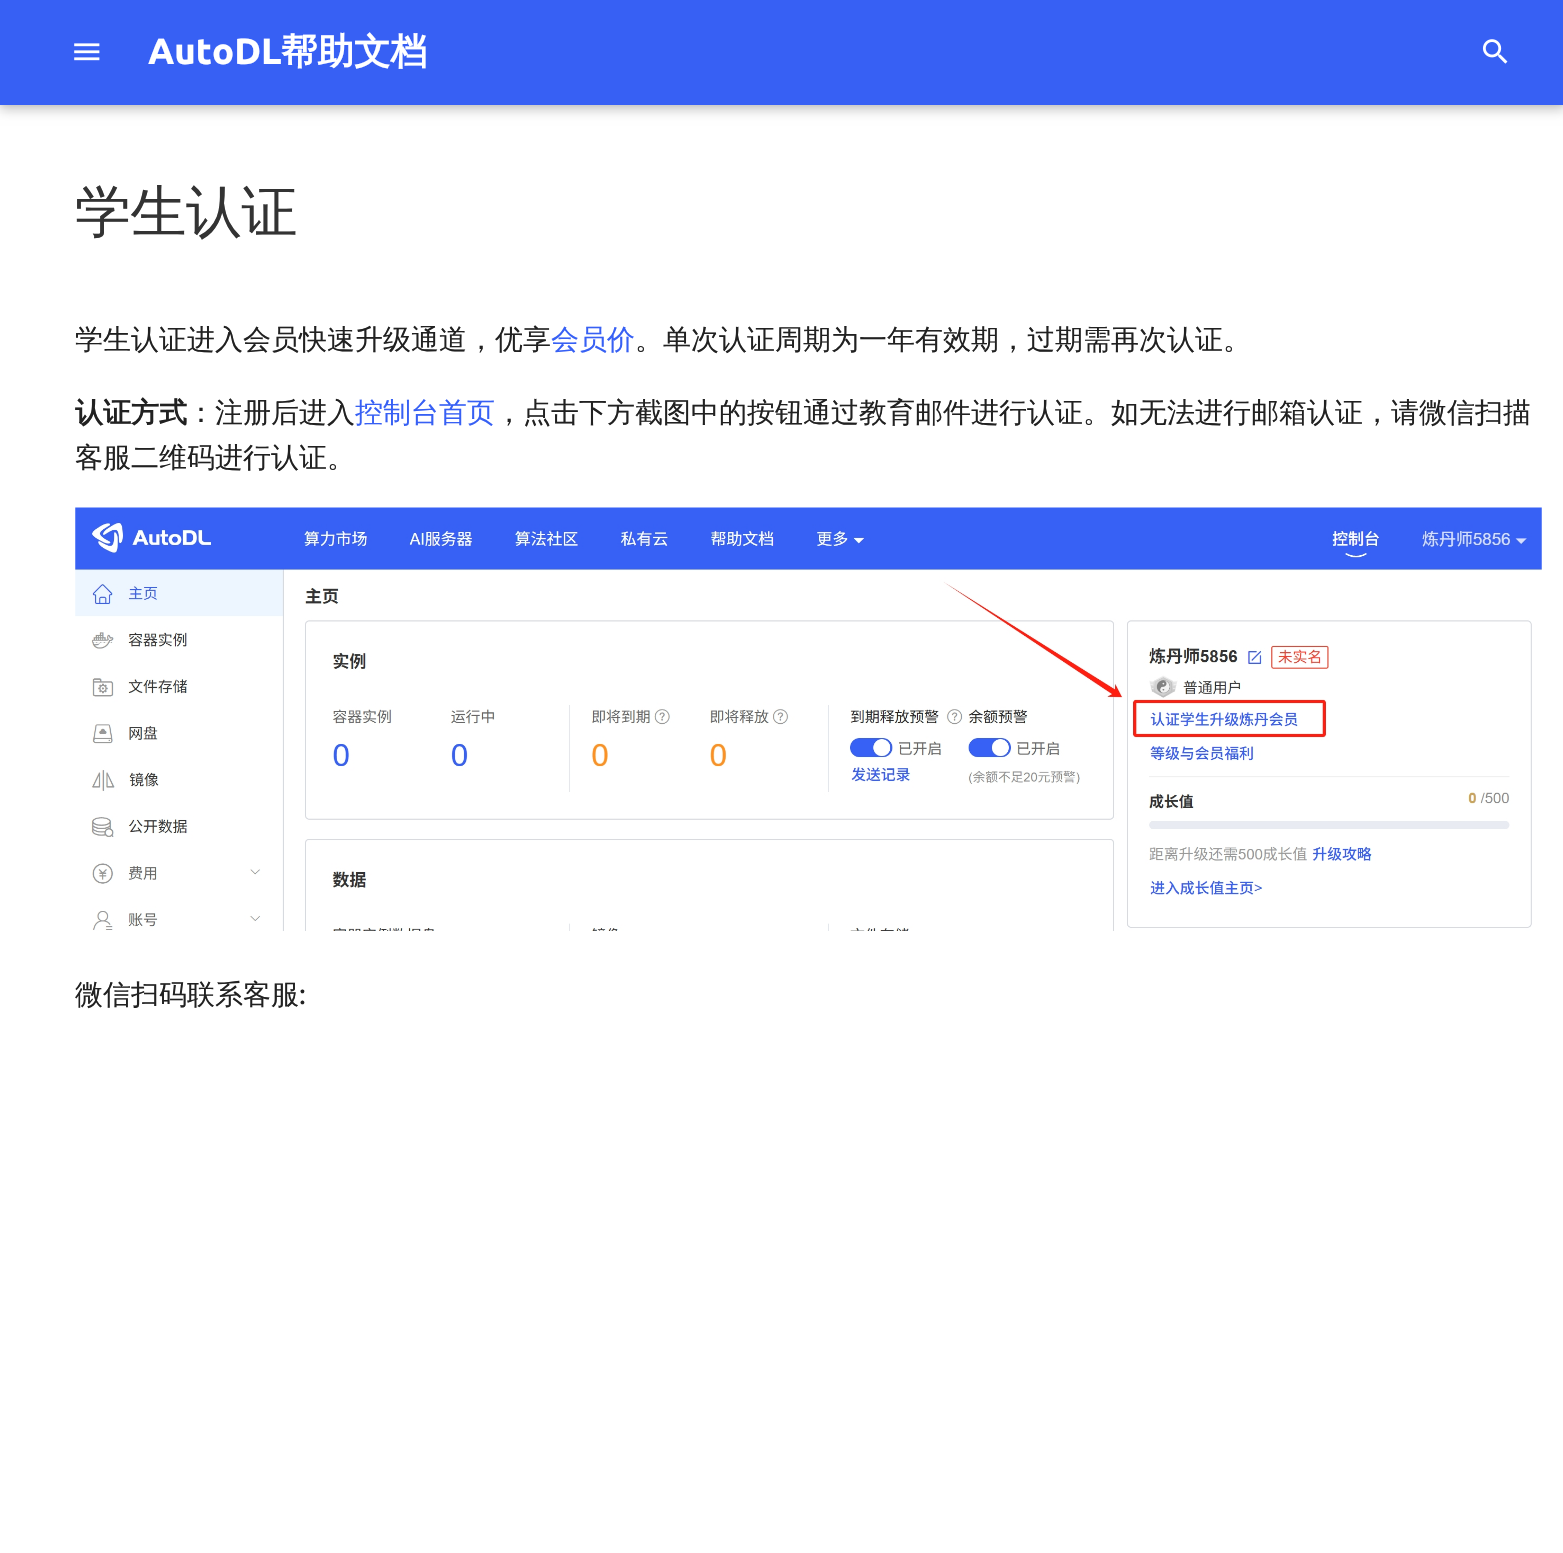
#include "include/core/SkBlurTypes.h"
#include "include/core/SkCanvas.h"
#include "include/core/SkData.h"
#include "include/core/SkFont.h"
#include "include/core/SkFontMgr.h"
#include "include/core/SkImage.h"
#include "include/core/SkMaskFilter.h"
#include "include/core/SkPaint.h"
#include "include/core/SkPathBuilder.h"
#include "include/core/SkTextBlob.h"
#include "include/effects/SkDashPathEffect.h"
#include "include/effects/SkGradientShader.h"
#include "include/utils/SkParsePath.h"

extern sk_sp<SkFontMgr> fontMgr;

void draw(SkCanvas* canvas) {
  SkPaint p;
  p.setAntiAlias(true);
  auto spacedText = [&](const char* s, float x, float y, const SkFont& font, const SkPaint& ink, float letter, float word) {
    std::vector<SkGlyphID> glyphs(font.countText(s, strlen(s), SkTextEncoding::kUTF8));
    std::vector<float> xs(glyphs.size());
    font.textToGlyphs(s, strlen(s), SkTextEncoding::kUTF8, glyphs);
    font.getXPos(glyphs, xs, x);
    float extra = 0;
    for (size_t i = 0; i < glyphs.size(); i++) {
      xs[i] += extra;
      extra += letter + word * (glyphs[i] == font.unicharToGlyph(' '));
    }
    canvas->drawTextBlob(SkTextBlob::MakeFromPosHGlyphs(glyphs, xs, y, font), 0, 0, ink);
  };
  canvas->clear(SK_ColorWHITE);
  p.setColor(SkColorSetARGB(51, 0, 0, 0));
  p.setMaskFilter(SkMaskFilter::MakeBlur(kNormal_SkBlurStyle, 5.5f));
  canvas->drawRect(SkRect::MakeLTRB(0, 5, 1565, 110), p);
  p.setMaskFilter(nullptr);
  p.setColor(SkColorSetARGB(26, 0, 0, 0));
  p.setMaskFilter(SkMaskFilter::MakeBlur(kNormal_SkBlurStyle, 3));
  canvas->drawRect(SkRect::MakeLTRB(0, 0, 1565, 105), p);
  p.setMaskFilter(nullptr);
  p.setColor(SkColorSetRGB(55, 96, 244));
  canvas->drawRect(SkRect::MakeLTRB(0, 0, 1563, 105), p);
  canvas->drawImageRect(SkImages::DeferredFromEncodedData(SkData::MakeFromFileName("images/1.png")), SkRect::MakeLTRB(74, 43, 100, 61), SkSamplingOptions());
  canvas->drawImageRect(SkImages::DeferredFromEncodedData(SkData::MakeFromFileName("images/2.png")), SkRect::MakeLTRB(1482, 39, 1508, 64), SkSamplingOptions());
  canvas->drawImageRect(SkImages::DeferredFromEncodedData(SkData::MakeFromFileName("images/3.png")), SkRect::MakeLTRB(75, 507, 1542, 931), SkSamplingOptions());
  SkFont font1(fontMgr->matchFamilyStyle("Ubuntu", SkFontStyle::Bold()), 36.5f);
  font1.setSubpixel(true);
  p.setColor(SK_ColorWHITE);
  canvas->drawString("AutoDL", 148, 64, font1, p);
  SkFont font2(fontMgr->matchFamilyStyle("WenQuanYi Zen Hei", SkFontStyle::Bold()), 36.5f);
  font2.setSubpixel(true);
  canvas->drawString("帮助文档", 281, 64, font2, p);
  SkFont font3(fontMgr->matchFamilyStyle("WenQuanYi Zen Hei", SkFontStyle(500, SkFontStyle::kNormal_Width, SkFontStyle::kUpright_Slant)), 56);
  font3.setSubpixel(true);
  p.setColor(SkColorSetRGB(51, 51, 51));
  spacedText("学生认证", 75, 231, font3, p, -0.5f, 0);
  SkFont font4(fontMgr->matchFamilyStyle("WenQuanYi Zen Hei", SkFontStyle(500, SkFontStyle::kNormal_Width, SkFontStyle::kUpright_Slant)), 28);
  font4.setSubpixel(true);
  p.setColor(SkColorSetRGB(33, 33, 33));
  canvas->drawString("学生认证进入会员快速升级通道，优享", 75, 349, font4, p);
  p.setColor(SkColorSetRGB(55, 96, 244));
  canvas->drawString("会员价", 551, 349, font4, p);
  p.setColor(SkColorSetRGB(33, 33, 33));
  canvas->drawString("。单次认证周期为一年有效期，过期需再次认证。", 635, 349, font4, p);
  SkFont font5(fontMgr->matchFamilyStyle("WenQuanYi Zen Hei", SkFontStyle::Bold()), 28);
  font5.setSubpixel(true);
  canvas->drawString("认证方式", 75, 422, font5, p);
  canvas->drawString("：注册后进入", 187, 422, font4, p);
  p.setColor(SkColorSetRGB(55, 96, 244));
  canvas->drawString("控制台首页", 355, 422, font4, p);
  p.setColor(SkColorSetRGB(33, 33, 33));
  canvas->drawString("，点击下方截图中的按钮通过教育邮件进行认证。如无法进行邮箱认证，请微信扫描", 495, 422, font4, p);
  canvas->drawString("客服二维码进行认证。", 75, 467, font4, p);
  canvas->drawString("微信扫码联系客服", 75, 1004, font4, p);
  SkFont font6(fontMgr->matchFamilyStyle("Ubuntu", SkFontStyle::Normal()), 28);
  font6.setSubpixel(true);
  canvas->drawString(":", 299, 1004, font6, p);
}
